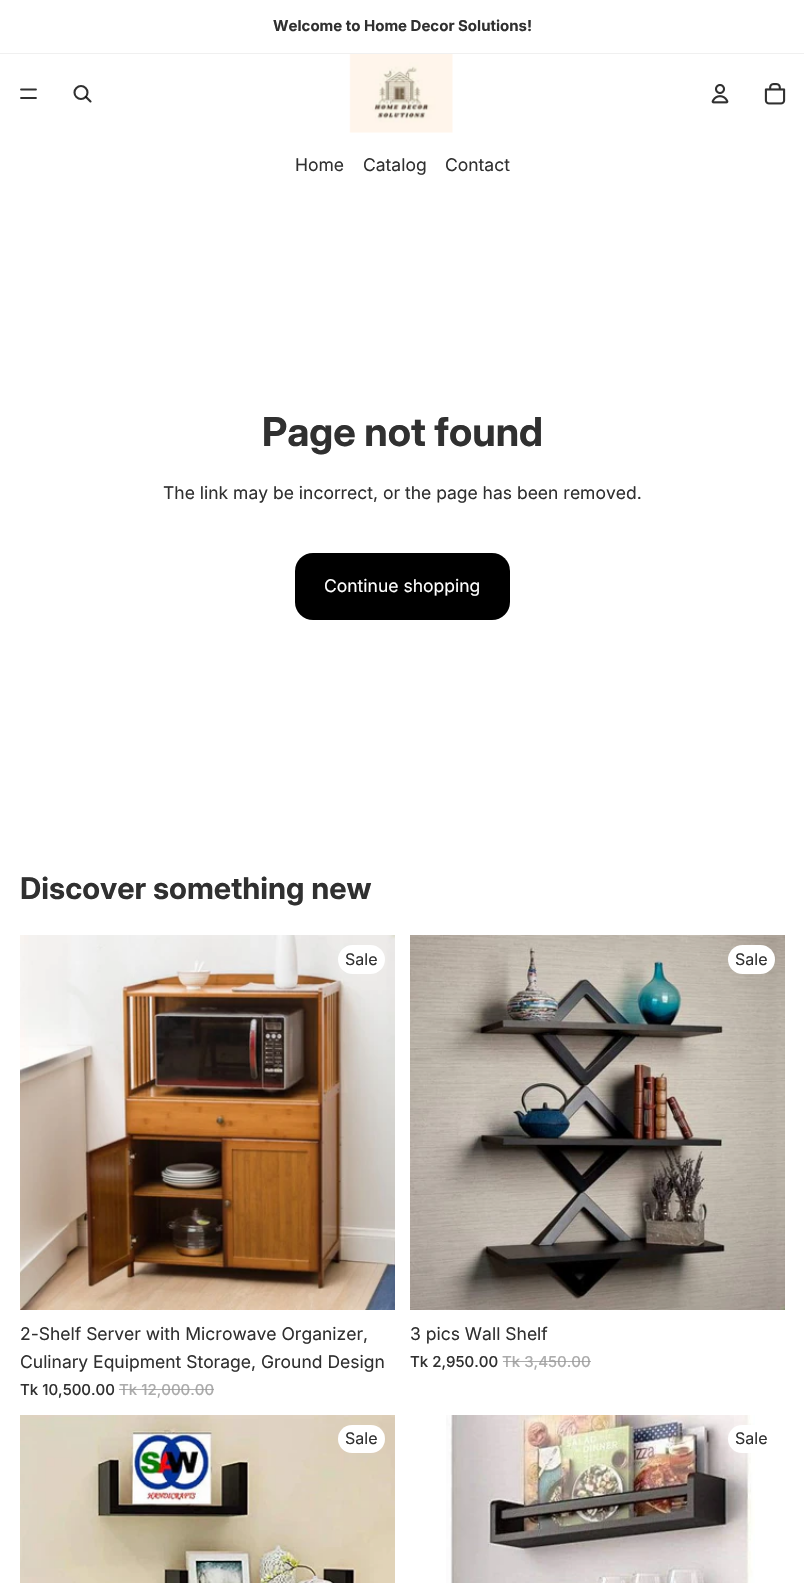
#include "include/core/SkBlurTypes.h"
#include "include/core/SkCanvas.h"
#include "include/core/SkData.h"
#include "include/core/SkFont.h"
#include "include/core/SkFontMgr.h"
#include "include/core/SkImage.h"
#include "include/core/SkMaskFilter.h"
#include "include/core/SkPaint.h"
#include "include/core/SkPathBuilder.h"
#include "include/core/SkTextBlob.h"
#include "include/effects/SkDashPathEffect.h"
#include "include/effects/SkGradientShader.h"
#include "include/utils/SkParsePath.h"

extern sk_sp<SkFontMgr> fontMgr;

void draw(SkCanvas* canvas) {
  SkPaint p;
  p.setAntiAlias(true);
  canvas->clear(SK_ColorWHITE);
  p.setColor(SkColorSetRGB(240, 240, 240));
  canvas->drawRect(SkRect::MakeLTRB(0, 53, 804, 54), p);
  p.setStyle(SkPaint::kStroke_Style);
  p.setStrokeWidth(1.8f);
  p.setStrokeCap(SkPaint::kRound_Cap);
  p.setColor(SkColorSetRGB(48, 48, 48));
  canvas->drawPath(SkPathBuilder().moveTo(21, 89.5f).lineTo(36, 89.5f).moveTo(21, 98).lineTo(36, 98).detach(), p);
  p.setStrokeWidth(2.1f);
  p.setStrokeCap(SkPaint::kButt_Cap);
  canvas->drawCircle(81, 92.5f, 6.5f, p);
  p.setStrokeCap(SkPaint::kRound_Cap);
  p.setStrokeJoin(SkPaint::kRound_Join);
  p.setColor(SkColorSetARGB(207, 0, 0, 0));
  canvas->drawPath(SkPathBuilder().moveTo(86, 97).lineTo(90.5f, 101.5f).detach(), p);
  canvas->drawImageRect(SkImages::DeferredFromEncodedData(SkData::MakeFromFileName("images/1.png")), SkRect::MakeLTRB(349, 54, 453, 133), SkSamplingOptions());
  canvas->drawImageRect(SkImages::DeferredFromEncodedData(SkData::MakeFromFileName("images/2.png")), SkRect::MakeLTRB(711, 84, 729, 104), SkSamplingOptions());
  canvas->drawImageRect(SkImages::DeferredFromEncodedData(SkData::MakeFromFileName("images/3.png")), SkRect::MakeLTRB(764, 83, 786, 105), SkSamplingOptions());
  p.setStyle(SkPaint::kFill_Style);
  p.setColor(SK_ColorBLACK);
  canvas->drawRoundRect(SkRect::MakeLTRB(295, 553, 510, 620), 18, 18, p);
  canvas->drawImageRect(SkImages::DeferredFromEncodedData(SkData::MakeFromFileName("images/4.png")), SkRect::MakeLTRB(20, 935, 395, 1310), SkSamplingOptions());
  p.setColor(SK_ColorWHITE);
  canvas->drawRoundRect(SkRect::MakeLTRB(338, 945, 385, 974), 14.5f, 14.5f, p);
  canvas->drawImageRect(SkImages::DeferredFromEncodedData(SkData::MakeFromFileName("images/5.png")), SkRect::MakeLTRB(410, 935, 785, 1310), SkSamplingOptions());
  canvas->drawRoundRect(SkRect::MakeLTRB(728, 945, 775, 974), 14.5f, 14.5f, p);
  canvas->drawImageRect(SkImages::DeferredFromEncodedData(SkData::MakeFromFileName("images/6.png")), SkRect::MakeLTRB(20, 1415, 395, 1583), SkSamplingOptions());
  canvas->drawRoundRect(SkRect::MakeLTRB(338, 1425, 385, 1453), 14, 14, p);
  canvas->drawImageRect(SkImages::DeferredFromEncodedData(SkData::MakeFromFileName("images/7.png")), SkRect::MakeLTRB(446, 1415, 755, 1583), SkSamplingOptions());
  canvas->drawRoundRect(SkRect::MakeLTRB(728, 1425, 775, 1453), 14, 14, p);
  SkFont font1(fontMgr->matchFamilyStyle("Inter", SkFontStyle::Bold()), 15);
  font1.setSubpixel(true);
  p.setColor(SkColorSetRGB(48, 48, 48));
  canvas->drawString("Welcome to Home Decor Solutions!", 273, 31, font1, p);
  SkFont font2(fontMgr->matchFamilyStyle("Inter", SkFontStyle::Normal()), 17.5f);
  font2.setSubpixel(true);
  canvas->drawString("Home", 295, 171, font2, p);
  canvas->drawString("Catalog", 363, 171, font2, p);
  canvas->drawString("Contact", 445, 171, font2, p);
  SkFont font3(fontMgr->matchFamilyStyle("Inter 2", SkFontStyle::Bold()), 40);
  font3.setSubpixel(true);
  canvas->drawString("Page not found", 262, 446, font3, p);
  canvas->drawString("The link may be incorrect, or the page has been removed.", 163, 499, font2, p);
  p.setColor(SK_ColorWHITE);
  canvas->drawString("Continue shopping", 324, 592, font2, p);
  SkFont font4(fontMgr->matchFamilyStyle("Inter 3", SkFontStyle::Bold()), 30);
  font4.setSubpixel(true);
  p.setColor(SkColorSetRGB(48, 48, 48));
  canvas->drawString("Discover something new", 20, 899, font4, p);
  SkFont font5(fontMgr->matchFamilyStyle("Inter", SkFontStyle::Normal()), 16);
  font5.setSubpixel(true);
  canvas->drawString("Sale", 345, 965, font5, p);
  canvas->drawString("2-Shelf Server with Microwave Organizer,", 20, 1340, font2, p);
  canvas->drawString("Culinary Equipment Storage, Ground Design", 20, 1368, font2, p);
  SkFont font6(fontMgr->matchFamilyStyle("Inter", SkFontStyle(500, SkFontStyle::kNormal_Width, SkFontStyle::kUpright_Slant)), 15);
  font6.setSubpixel(true);
  canvas->drawString("Tk 10,500.00", 20, 1395, font6, p);
  p.setColor(SkColorSetRGB(172, 172, 172));
  canvas->drawString("Tk 12,000.00", 119, 1395, font6, p);
  p.setColor(SkColorSetARGB(207, 153, 153, 153));
  canvas->drawRect(SkRect::MakeLTRB(119, 1389, 214, 1390), p);
  p.setColor(SkColorSetRGB(48, 48, 48));
  canvas->drawString("Sale", 735, 965, font5, p);
  canvas->drawString("3 pics Wall Shelf", 410, 1340, font2, p);
  canvas->drawString("Tk 2,950.00", 410, 1367, font6, p);
  p.setColor(SkColorSetRGB(172, 172, 172));
  canvas->drawString("Tk 3,450.00", 502, 1367, font6, p);
  p.setColor(SkColorSetARGB(207, 153, 153, 153));
  canvas->drawRect(SkRect::MakeLTRB(503, 1361, 591, 1362), p);
  p.setColor(SkColorSetRGB(48, 48, 48));
  canvas->drawString("Sale", 345, 1444, font5, p);
  canvas->drawString("Sale", 735, 1444, font5, p);
}
